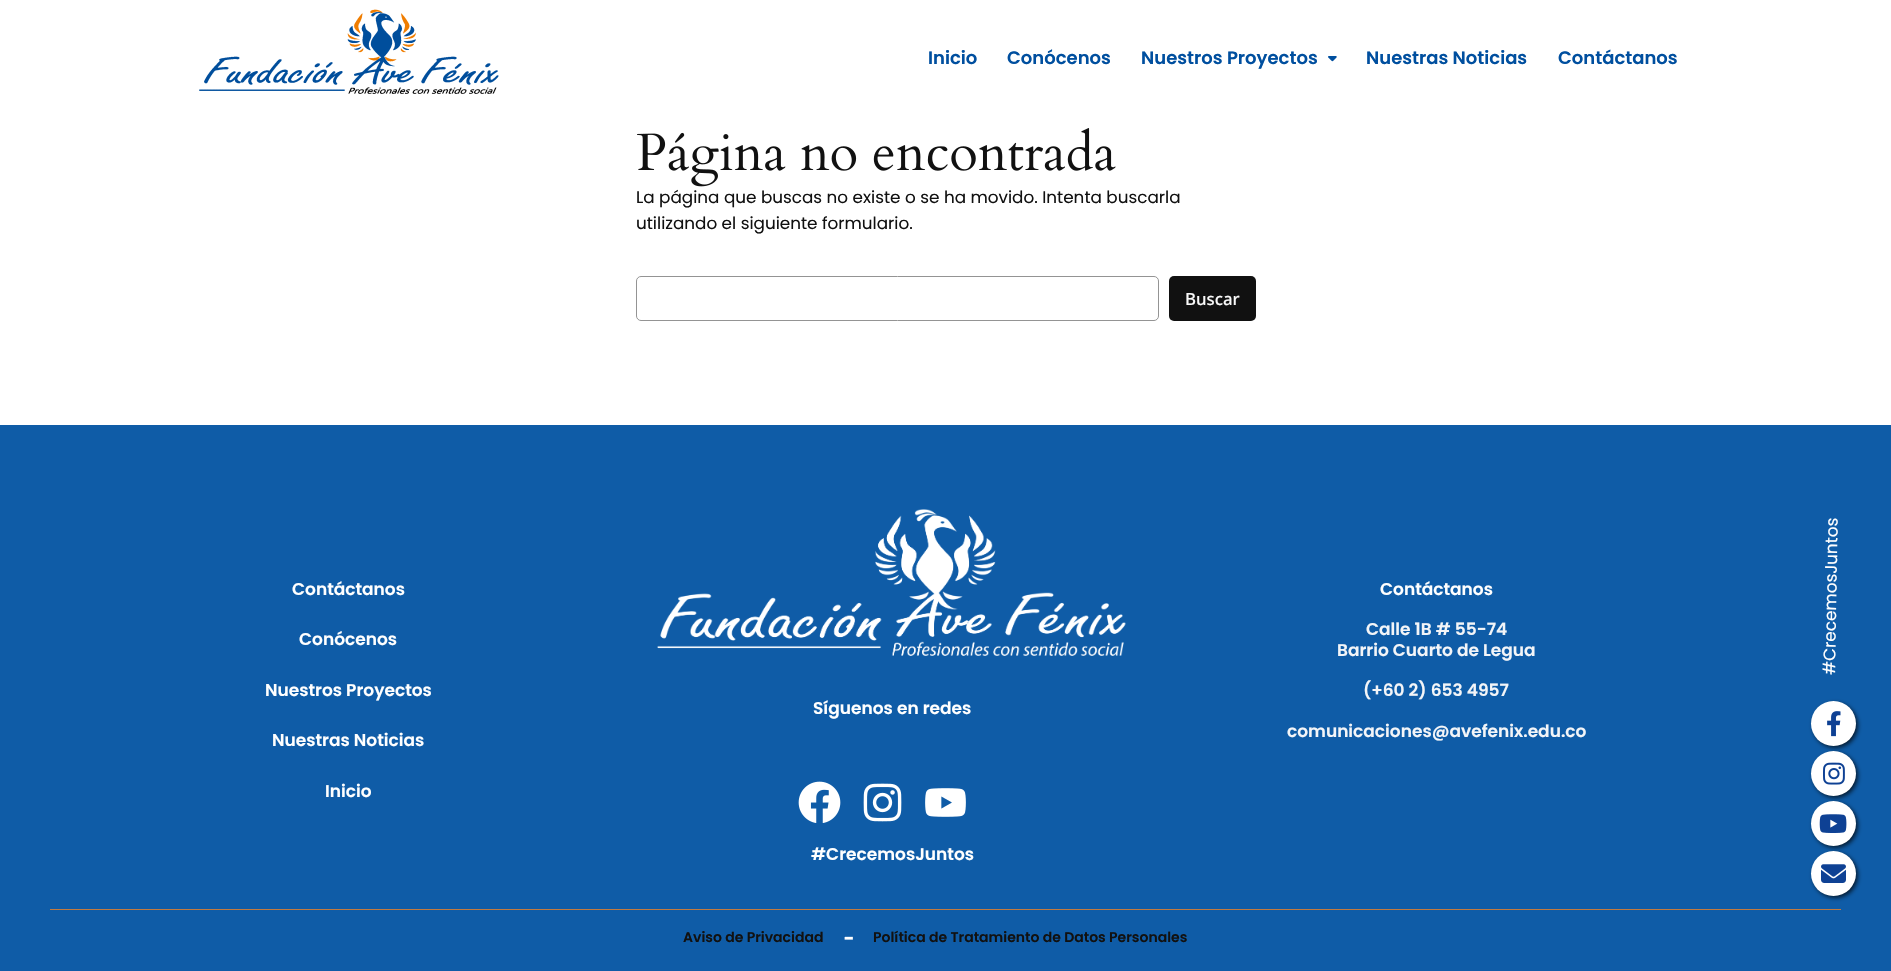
#include "include/core/SkBlurTypes.h"
#include "include/core/SkCanvas.h"
#include "include/core/SkData.h"
#include "include/core/SkFont.h"
#include "include/core/SkFontMgr.h"
#include "include/core/SkImage.h"
#include "include/core/SkMaskFilter.h"
#include "include/core/SkPaint.h"
#include "include/core/SkPathBuilder.h"
#include "include/core/SkTextBlob.h"
#include "include/effects/SkDashPathEffect.h"
#include "include/effects/SkGradientShader.h"
#include "include/utils/SkParsePath.h"

extern sk_sp<SkFontMgr> fontMgr;

void draw(SkCanvas* canvas) {
  SkPaint p;
  p.setAntiAlias(true);
  canvas->clear(SK_ColorWHITE);
  canvas->drawImageRect(SkImages::DeferredFromEncodedData(SkData::MakeFromFileName("images/1.png")), SkRect::MakeLTRB(199, 9, 499, 94), SkSamplingOptions());
  canvas->drawImageRect(SkImages::DeferredFromEncodedData(SkData::MakeFromFileName("images/2.png")), SkRect::MakeLTRB(1328, 56, 1337, 62), SkSamplingOptions());
  canvas->drawImageRect(SkImages::DeferredFromEncodedData(SkData::MakeFromFileName("images/3.png")), SkRect::MakeLTRB(637, 128, 1116, 187), SkSamplingOptions());
  p.setStyle(SkPaint::kStroke_Style);
  p.setStrokeWidth(1);
  p.setColor(SkColorSetRGB(148, 148, 148));
  canvas->drawRoundRect(SkRect::MakeLTRB(636.5f, 276.5f, 1158.5f, 320.5f), 4.5f, 4.5f, p);
  p.setStyle(SkPaint::kFill_Style);
  p.setColor(SkColorSetRGB(17, 17, 17));
  canvas->drawRoundRect(SkRect::MakeLTRB(1169, 276, 1256, 321), 5, 5, p);
  p.setColor(SkColorSetRGB(15, 92, 167));
  canvas->drawRect(SkRect::MakeLTRB(0, 425, 1891, 971), p);
  canvas->drawImageRect(SkImages::DeferredFromEncodedData(SkData::MakeFromFileName("images/4.png")), SkRect::MakeLTRB(657, 509, 1126, 656), SkSamplingOptions());
  canvas->drawImageRect(SkImages::DeferredFromEncodedData(SkData::MakeFromFileName("images/5.png")), SkRect::MakeLTRB(798, 781, 841, 823), SkSamplingOptions());
  canvas->drawImageRect(SkImages::DeferredFromEncodedData(SkData::MakeFromFileName("images/6.png")), SkRect::MakeLTRB(863, 783, 902, 822), SkSamplingOptions());
  canvas->drawImageRect(SkImages::DeferredFromEncodedData(SkData::MakeFromFileName("images/7.png")), SkRect::MakeLTRB(925, 788, 966, 817), SkSamplingOptions());
  p.setColor(SkColorSetRGB(194, 122, 63));
  canvas->drawRect(SkRect::MakeLTRB(50, 909, 1841, 910), p);
  p.setColor(SkColorSetARGB(179, 0, 0, 0));
  p.setMaskFilter(SkMaskFilter::MakeBlur(kNormal_SkBlurStyle, 2));
  canvas->drawRoundRect(SkRect::MakeLTRB(1813, 703, 1858, 748), 22.5f, 22.5f, p);
  p.setMaskFilter(nullptr);
  p.setColor(SK_ColorWHITE);
  canvas->drawCircle(1833.5f, 723.5f, 22.5f, p);
  canvas->drawImageRect(SkImages::DeferredFromEncodedData(SkData::MakeFromFileName("images/8.png")), SkRect::MakeLTRB(1827, 711, 1841, 737), SkSamplingOptions());
  p.setColor(SkColorSetARGB(179, 0, 0, 0));
  p.setMaskFilter(SkMaskFilter::MakeBlur(kNormal_SkBlurStyle, 2));
  canvas->drawRoundRect(SkRect::MakeLTRB(1813, 753, 1858, 798), 22.5f, 22.5f, p);
  p.setMaskFilter(nullptr);
  p.setColor(SK_ColorWHITE);
  canvas->drawCircle(1833.5f, 773.5f, 22.5f, p);
  canvas->drawImageRect(SkImages::DeferredFromEncodedData(SkData::MakeFromFileName("images/9.png")), SkRect::MakeLTRB(1823, 762, 1845, 785), SkSamplingOptions());
  p.setColor(SkColorSetARGB(179, 0, 0, 0));
  p.setMaskFilter(SkMaskFilter::MakeBlur(kNormal_SkBlurStyle, 2));
  canvas->drawRoundRect(SkRect::MakeLTRB(1813, 803, 1858, 848), 22.5f, 22.5f, p);
  p.setMaskFilter(nullptr);
  p.setColor(SK_ColorWHITE);
  canvas->drawCircle(1833.5f, 823.5f, 22.5f, p);
  canvas->drawImageRect(SkImages::DeferredFromEncodedData(SkData::MakeFromFileName("images/10.png")), SkRect::MakeLTRB(1819, 814, 1847, 833), SkSamplingOptions());
  p.setColor(SkColorSetARGB(179, 0, 0, 0));
  p.setMaskFilter(SkMaskFilter::MakeBlur(kNormal_SkBlurStyle, 2));
  canvas->drawRoundRect(SkRect::MakeLTRB(1813, 853, 1858, 898), 22.5f, 22.5f, p);
  p.setMaskFilter(nullptr);
  p.setColor(SK_ColorWHITE);
  canvas->drawCircle(1833.5f, 873.5f, 22.5f, p);
  canvas->drawImageRect(SkImages::DeferredFromEncodedData(SkData::MakeFromFileName("images/11.png")), SkRect::MakeLTRB(1821, 864, 1846, 883), SkSamplingOptions());
  SkFont font1(fontMgr->matchFamilyStyle("Poppins", SkFontStyle(600, SkFontStyle::kNormal_Width, SkFontStyle::kUpright_Slant)), 18);
  font1.setSubpixel(true);
  p.setColor(SkColorSetRGB(0, 79, 159));
  canvas->drawString("Inicio", 928, 64, font1, p);
  canvas->drawString("Conócenos", 1007, 64, font1, p);
  canvas->drawString("Nuestros Proyectos", 1141, 64, font1, p);
  canvas->drawString("Nuestras Noticias", 1366, 64, font1, p);
  canvas->drawString("Contáctanos", 1558, 64, font1, p);
  SkFont font2(fontMgr->matchFamilyStyle("Poppins", SkFontStyle::Normal()), 16.8f);
  font2.setSubpixel(true);
  p.setColor(SkColorSetRGB(17, 17, 17));
  canvas->drawString("La página que buscas no existe o se ha movido. Intenta buscarla", 636, 203, font2, p);
  canvas->drawString("utilizando el siguiente formulario.", 636, 229, font2, p);
  SkFont font3(fontMgr->matchFamilyStyle("Noto Sans", SkFontStyle(500, SkFontStyle::kNormal_Width, SkFontStyle::kUpright_Slant)), 16.8f);
  font3.setSubpixel(true);
  p.setColor(SkColorSetRGB(249, 249, 249));
  canvas->drawString("Buscar", 1185, 305, font3, p);
  SkFont font4(fontMgr->matchFamilyStyle("Poppins", SkFontStyle(600, SkFontStyle::kNormal_Width, SkFontStyle::kUpright_Slant)), 17);
  font4.setSubpixel(true);
  p.setColor(SK_ColorWHITE);
  canvas->drawString("Contáctanos", 292, 595, font4, p);
  canvas->drawString("Conócenos", 299, 645, font4, p);
  canvas->drawString("Nuestros Proyectos", 265, 696, font4, p);
  canvas->drawString("Nuestras Noticias", 272, 746, font4, p);
  canvas->drawString("Inicio", 325, 797, font4, p);
  canvas->drawString("Contáctanos", 1380, 595, font4, p);
  p.setColor(SkColorSetRGB(243, 245, 248));
  canvas->drawString("Calle 1B # 55-74", 1366, 635, font4, p);
  canvas->drawString("Barrio Cuarto de Legua", 1337, 656, font4, p);
  canvas->drawString("(+60 2) 653 4957", 1363, 696, font4, p);
  canvas->drawString("comunicaciones@avefenix.edu.co", 1287, 737, font4, p);
  p.setColor(SK_ColorWHITE);
  canvas->drawString("Síguenos en redes", 813, 714, font4, p);
  canvas->drawString("#CrecemosJuntos", 811, 860, font4, p);
  SkFont font5(fontMgr->matchFamilyStyle("Poppins", SkFontStyle(600, SkFontStyle::kNormal_Width, SkFontStyle::kUpright_Slant)), 14);
  font5.setSubpixel(true);
  p.setColor(SkColorSetRGB(17, 17, 17));
  canvas->drawString("Aviso de Privacidad", 683, 942, font5, p);
  SkFont font6(fontMgr->matchFamilyStyle("Poppins", SkFontStyle(900, SkFontStyle::kNormal_Width, SkFontStyle::kUpright_Slant)), 14);
  font6.setSubpixel(true);
  p.setColor(SK_ColorWHITE);
  canvas->drawString("–", 844, 943, font6, p);
  p.setColor(SkColorSetRGB(17, 17, 17));
  canvas->drawString("Política de Tratamiento de Datos Personales", 873, 942, font5, p);
  p.setColor(SK_ColorWHITE);
  canvas->save();
  canvas->rotate(-89, 1835, 675);
  canvas->drawString("#CrecemosJuntos", 1835, 675, font2, p);
  canvas->restore();
}
